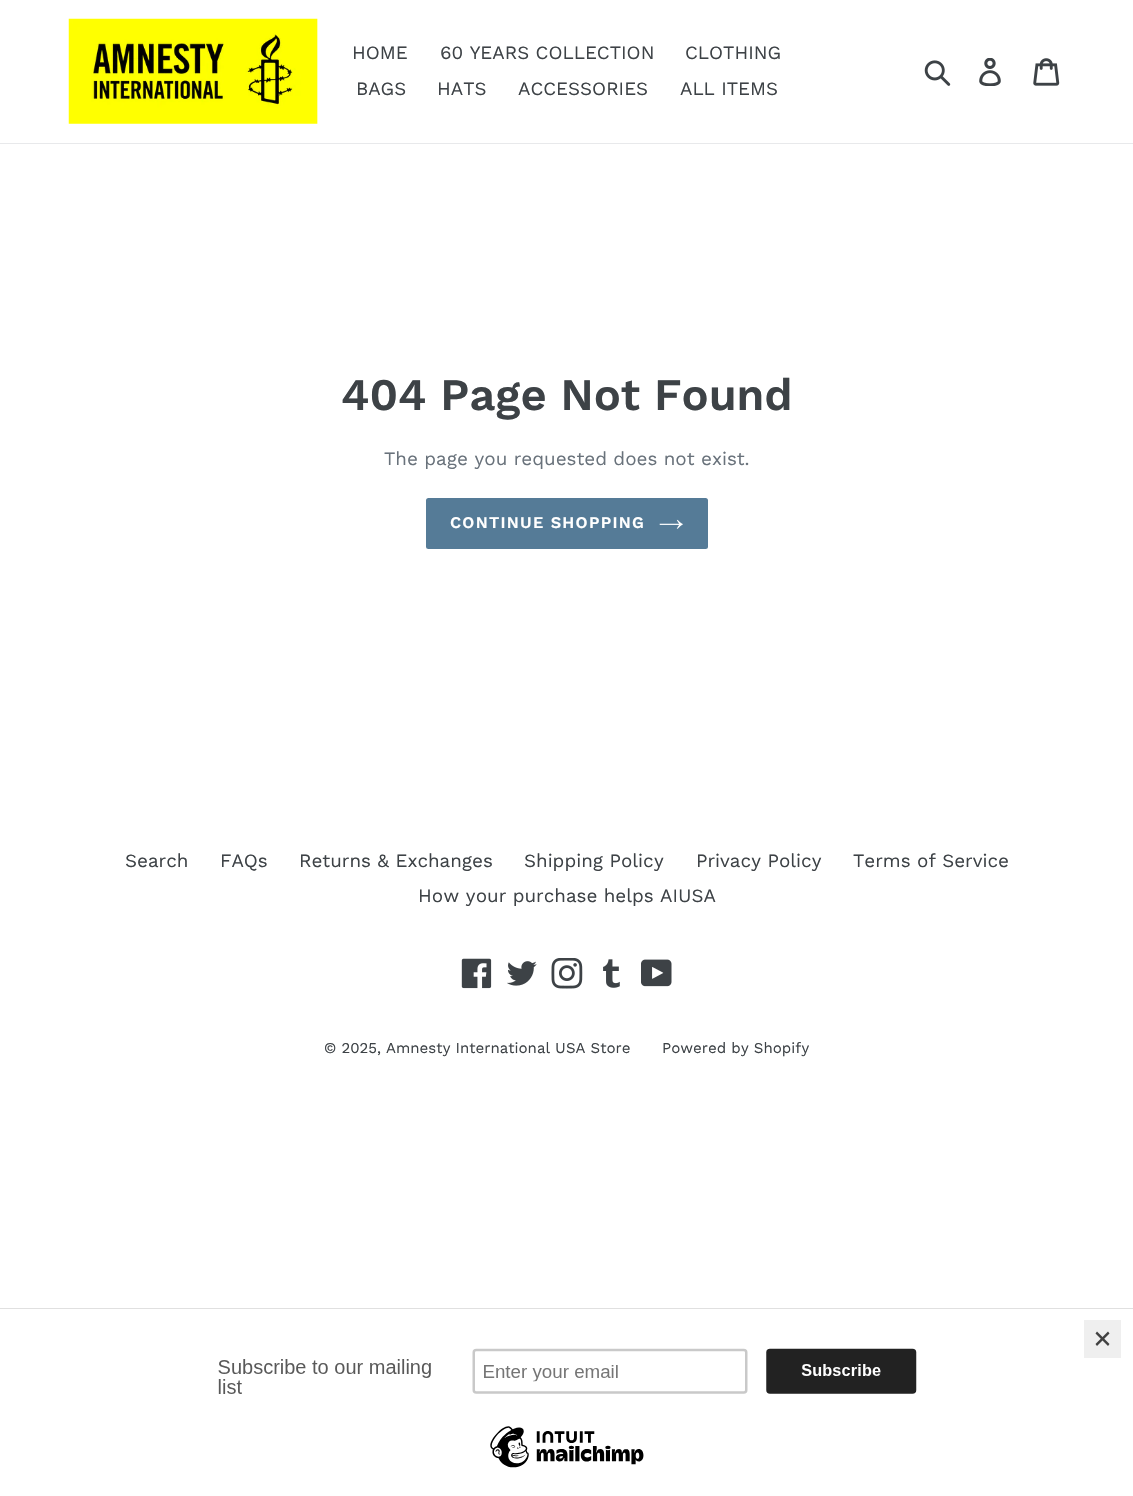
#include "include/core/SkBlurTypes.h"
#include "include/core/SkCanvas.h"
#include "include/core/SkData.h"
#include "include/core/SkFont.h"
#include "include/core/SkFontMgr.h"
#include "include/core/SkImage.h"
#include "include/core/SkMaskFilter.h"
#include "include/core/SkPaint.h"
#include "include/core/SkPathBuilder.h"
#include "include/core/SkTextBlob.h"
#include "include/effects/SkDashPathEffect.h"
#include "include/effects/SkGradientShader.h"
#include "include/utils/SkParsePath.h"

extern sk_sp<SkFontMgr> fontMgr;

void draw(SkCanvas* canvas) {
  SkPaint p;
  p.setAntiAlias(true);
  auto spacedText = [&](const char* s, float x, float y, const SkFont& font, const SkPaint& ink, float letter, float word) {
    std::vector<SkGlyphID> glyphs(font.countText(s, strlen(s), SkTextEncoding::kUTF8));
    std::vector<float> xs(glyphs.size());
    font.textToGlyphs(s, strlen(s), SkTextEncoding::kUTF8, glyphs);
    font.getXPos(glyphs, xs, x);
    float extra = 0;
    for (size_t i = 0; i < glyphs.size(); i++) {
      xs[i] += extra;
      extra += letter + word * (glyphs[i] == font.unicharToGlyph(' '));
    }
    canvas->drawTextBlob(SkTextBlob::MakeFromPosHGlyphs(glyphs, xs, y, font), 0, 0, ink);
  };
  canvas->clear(SK_ColorWHITE);
  p.setColor(SkColorSetRGB(232, 233, 235));
  canvas->drawRect(SkRect::MakeLTRB(0, 143, 1133, 144), p);
  canvas->drawImageRect(SkImages::DeferredFromEncodedData(SkData::MakeFromFileName("images/1.png")), SkRect::MakeLTRB(68, 18, 318, 124), SkSamplingOptions());
  canvas->drawImageRect(SkImages::DeferredFromEncodedData(SkData::MakeFromFileName("images/2.png")), SkRect::MakeLTRB(924, 60, 951, 86), SkSamplingOptions());
  canvas->drawImageRect(SkImages::DeferredFromEncodedData(SkData::MakeFromFileName("images/3.png")), SkRect::MakeLTRB(979, 58, 1001, 86), SkSamplingOptions());
  canvas->drawImageRect(SkImages::DeferredFromEncodedData(SkData::MakeFromFileName("images/4.png")), SkRect::MakeLTRB(1033, 58, 1060, 86), SkSamplingOptions());
  p.setColor(SkColorSetRGB(85, 123, 151));
  canvas->drawRoundRect(SkRect::MakeLTRB(426, 498, 708, 549), 2.5f, 2.5f, p);
  canvas->drawImageRect(SkImages::DeferredFromEncodedData(SkData::MakeFromFileName("images/5.png")), SkRect::MakeLTRB(659, 519, 683, 529), SkSamplingOptions());
  canvas->drawImageRect(SkImages::DeferredFromEncodedData(SkData::MakeFromFileName("images/6.png")), SkRect::MakeLTRB(461, 958, 492, 989), SkSamplingOptions());
  canvas->drawImageRect(SkImages::DeferredFromEncodedData(SkData::MakeFromFileName("images/7.png")), SkRect::MakeLTRB(507, 961, 537, 986), SkSamplingOptions());
  canvas->drawImageRect(SkImages::DeferredFromEncodedData(SkData::MakeFromFileName("images/8.png")), SkRect::MakeLTRB(551, 958, 583, 989), SkSamplingOptions());
  canvas->drawImageRect(SkImages::DeferredFromEncodedData(SkData::MakeFromFileName("images/9.png")), SkRect::MakeLTRB(603, 959, 620, 988), SkSamplingOptions());
  canvas->drawImageRect(SkImages::DeferredFromEncodedData(SkData::MakeFromFileName("images/10.png")), SkRect::MakeLTRB(641, 959, 672, 987), SkSamplingOptions());
  p.setColor(SkColorSetRGB(224, 224, 224));
  canvas->drawRect(SkRect::MakeLTRB(0, 1308, 1133, 1309), p);
  canvas->drawImageRect(SkImages::DeferredFromEncodedData(SkData::MakeFromFileName("images/11.png")), SkRect::MakeLTRB(218, 1348, 917, 1468), SkSamplingOptions());
  p.setColor(SkColorSetRGB(239, 239, 239));
  canvas->drawRect(SkRect::MakeLTRB(1084, 1320, 1121, 1358), p);
  p.setColor(SkColorSetRGB(65, 65, 65));
  canvas->drawPath(SkPathBuilder().moveTo(1108, 1331.5f).lineTo(1109.5f, 1333.5f).lineTo(1097, 1346).lineTo(1095.5f, 1344).close().detach(), p);
  canvas->drawPath(SkPathBuilder().moveTo(1095.5f, 1333.5f).lineTo(1097, 1331.5f).lineTo(1109.5f, 1344).lineTo(1108, 1346).close().detach(), p);
  SkFont font1(fontMgr->matchFamilyStyle("Work Sans", SkFontStyle::Normal()), 18.75f);
  font1.setSubpixel(true);
  p.setColor(SkColorSetRGB(61, 66, 70));
  canvas->drawString("HOME", 352, 59, font1, p);
  canvas->drawString("60 YEARS COLLECTION", 440, 59, font1, p);
  canvas->drawString("CLOTHING", 685, 59, font1, p);
  canvas->drawString("BAGS", 356, 95, font1, p);
  canvas->drawString("HATS", 437, 95, font1, p);
  canvas->drawString("ACCESSORIES", 518, 95, font1, p);
  canvas->drawString("ALL ITEMS", 680, 95, font1, p);
  SkFont font2(fontMgr->matchFamilyStyle("Work Sans", SkFontStyle(600, SkFontStyle::kNormal_Width, SkFontStyle::kUpright_Slant)), 45);
  font2.setSubpixel(true);
  canvas->drawString("404 Page Not Found", 341, 410, font2, p);
  p.setColor(SkColorSetRGB(105, 114, 123));
  canvas->drawString("The page you requested does not exist.", 384, 465, font1, p);
  SkFont font3(fontMgr->matchFamilyStyle("Work Sans", SkFontStyle(600, SkFontStyle::kNormal_Width, SkFontStyle::kUpright_Slant)), 16.25f);
  font3.setSubpixel(true);
  p.setColor(SK_ColorWHITE);
  spacedText("CONTINUE SHOPPING", 450, 528, font3, p, 1.25f, 0);
  p.setColor(SkColorSetRGB(61, 66, 70));
  canvas->drawString("Search", 125, 867, font1, p);
  canvas->drawString("FAQs", 220, 867, font1, p);
  canvas->drawString("Returns & Exchanges", 299, 867, font1, p);
  canvas->drawString("Shipping Policy", 524, 867, font1, p);
  canvas->drawString("Privacy Policy", 696, 867, font1, p);
  canvas->drawString("Terms of Service", 853, 867, font1, p);
  canvas->drawString("How your purchase helps AIUSA", 418, 902, font1, p);
  SkFont font4(fontMgr->matchFamilyStyle("Work Sans", SkFontStyle::Normal()), 15);
  font4.setSubpixel(true);
  canvas->drawString("© 2025, Amnesty International USA Store", 324, 1053, font4, p);
  canvas->drawString("Powered by Shopify", 662, 1053, font4, p);
}
